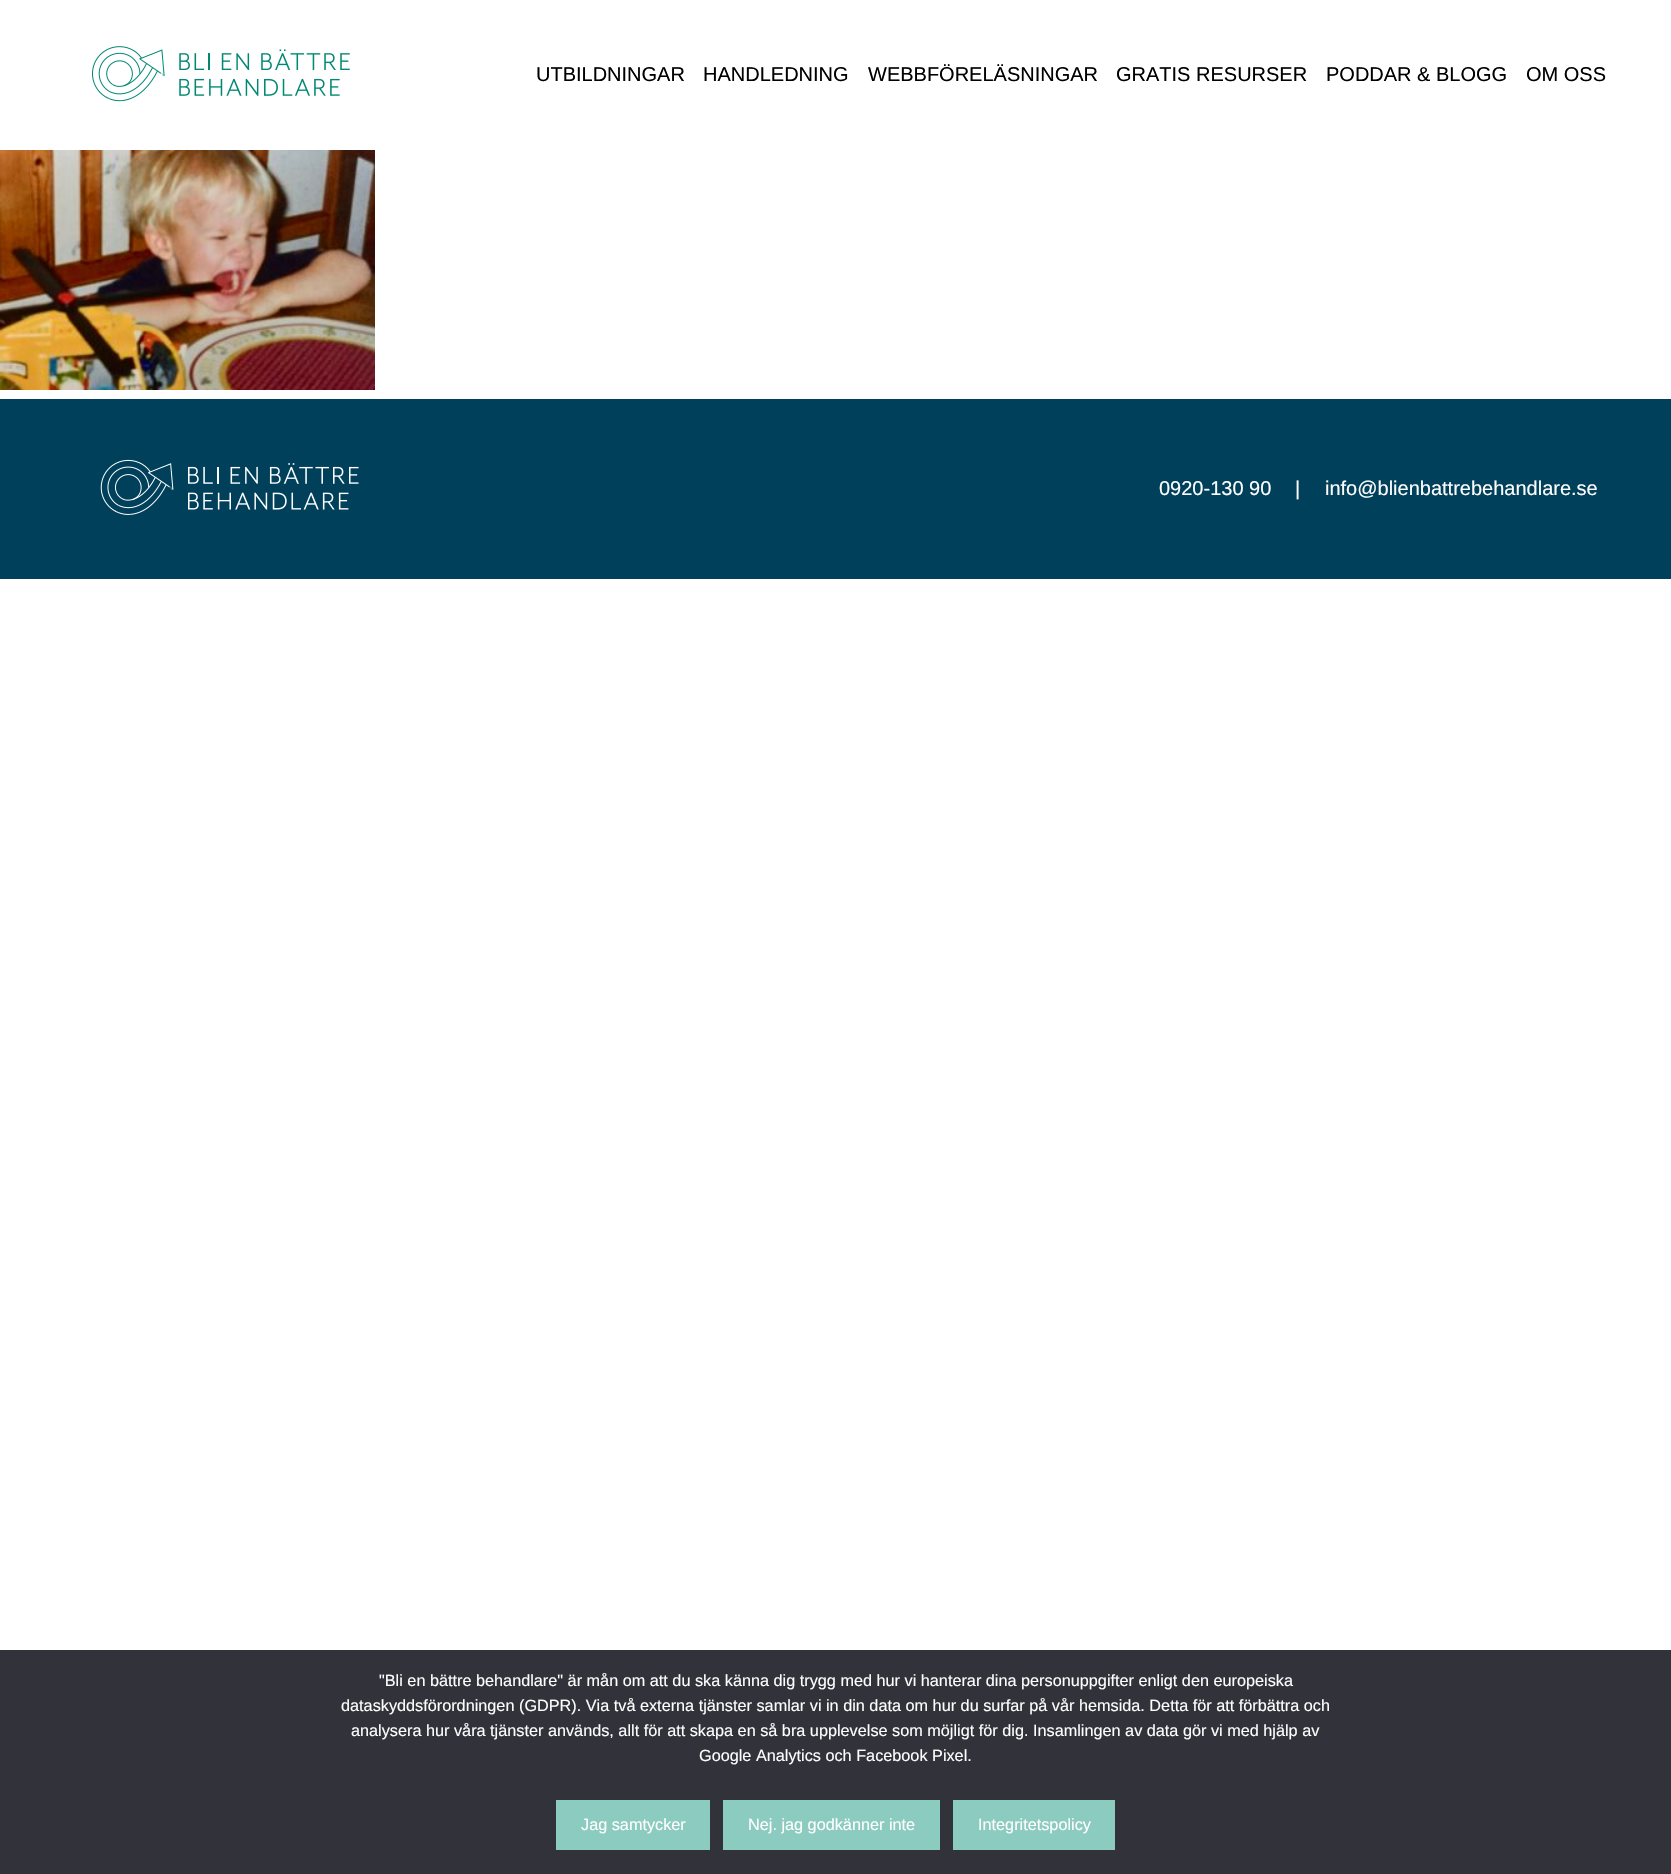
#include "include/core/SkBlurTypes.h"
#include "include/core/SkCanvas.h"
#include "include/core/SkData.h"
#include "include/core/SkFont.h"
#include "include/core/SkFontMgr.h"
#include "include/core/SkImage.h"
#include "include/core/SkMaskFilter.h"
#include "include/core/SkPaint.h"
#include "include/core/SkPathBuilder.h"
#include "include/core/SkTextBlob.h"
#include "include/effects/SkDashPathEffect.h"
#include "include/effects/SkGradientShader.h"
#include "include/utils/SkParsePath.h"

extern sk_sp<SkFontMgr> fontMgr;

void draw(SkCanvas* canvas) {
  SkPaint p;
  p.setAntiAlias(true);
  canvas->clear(SK_ColorWHITE);
  canvas->drawImageRect(SkImages::DeferredFromEncodedData(SkData::MakeFromFileName("images/1.png")), SkRect::MakeLTRB(92, 46, 350, 102), SkSamplingOptions());
  canvas->drawImageRect(SkImages::DeferredFromEncodedData(SkData::MakeFromFileName("images/2.png")), SkRect::MakeLTRB(0, 150, 375, 390), SkSamplingOptions());
  p.setColor(SkColorSetRGB(0, 64, 91));
  canvas->drawRect(SkRect::MakeLTRB(0, 399, 1671, 579), p);
  canvas->drawImageRect(SkImages::DeferredFromEncodedData(SkData::MakeFromFileName("images/3.png")), SkRect::MakeLTRB(100, 459, 359, 515), SkSamplingOptions());
  p.setColor(SkColorSetRGB(50, 50, 58));
  canvas->drawRect(SkRect::MakeLTRB(0, 1650, 1671, 1874), p);
  p.setColor(SkColorSetRGB(140, 203, 191));
  canvas->drawRect(SkRect::MakeLTRB(556, 1800, 710, 1850), p);
  canvas->drawRect(SkRect::MakeLTRB(723, 1800, 940, 1850), p);
  canvas->drawRect(SkRect::MakeLTRB(953, 1800, 1115, 1850), p);
  SkFont font1(fontMgr->matchFamilyStyle("Liberation Sans", SkFontStyle::Normal()), 20);
  font1.setSubpixel(true);
  p.setColor(SK_ColorBLACK);
  canvas->drawString("UTBILDNINGAR", 536, 81, font1, p);
  canvas->drawString("HANDLEDNING", 703, 81, font1, p);
  canvas->drawString("WEBBFÖRELÄSNINGAR", 868, 81, font1, p);
  canvas->drawString("GRATIS RESURSER", 1116, 81, font1, p);
  canvas->drawString("PODDAR & BLOGG", 1326, 81, font1, p);
  canvas->drawString("OM OSS", 1526, 81, font1, p);
  p.setColor(SkColorSetRGB(254, 254, 254));
  canvas->drawString("0920-130 90", 1159, 495, font1, p);
  canvas->drawString("|", 1295, 495, font1, p);
  canvas->drawString("info@blienbattrebehandlare.se", 1325, 495, font1, p);
  SkFont font2(fontMgr->matchFamilyStyle("Liberation Sans", SkFontStyle::Normal()), 16.25f);
  font2.setSubpixel(true);
  canvas->drawString("\"Bli en bättre behandlare\" är mån om att du ska känna dig trygg med hur vi hanterar dina personuppgifter enligt den europeiska", 379, 1686, font2, p);
  canvas->drawString("dataskyddsförordningen (GDPR). Via två externa tjänster samlar vi in din data om hur du surfar på vår hemsida. Detta för att förbättra och", 341, 1711, font2, p);
  canvas->drawString("analysera hur våra tjänster används, allt för att skapa en så bra upplevelse som möjligt för dig. Insamlingen av data gör vi med hjälp av", 351, 1736, font2, p);
  canvas->drawString("Google Analytics och Facebook Pixel.", 699, 1761, font2, p);
  canvas->drawString("Jag samtycker", 581, 1830, font2, p);
  canvas->drawString("Nej. jag godkänner inte", 748, 1830, font2, p);
  canvas->drawString("Integritetspolicy", 978, 1830, font2, p);
}
